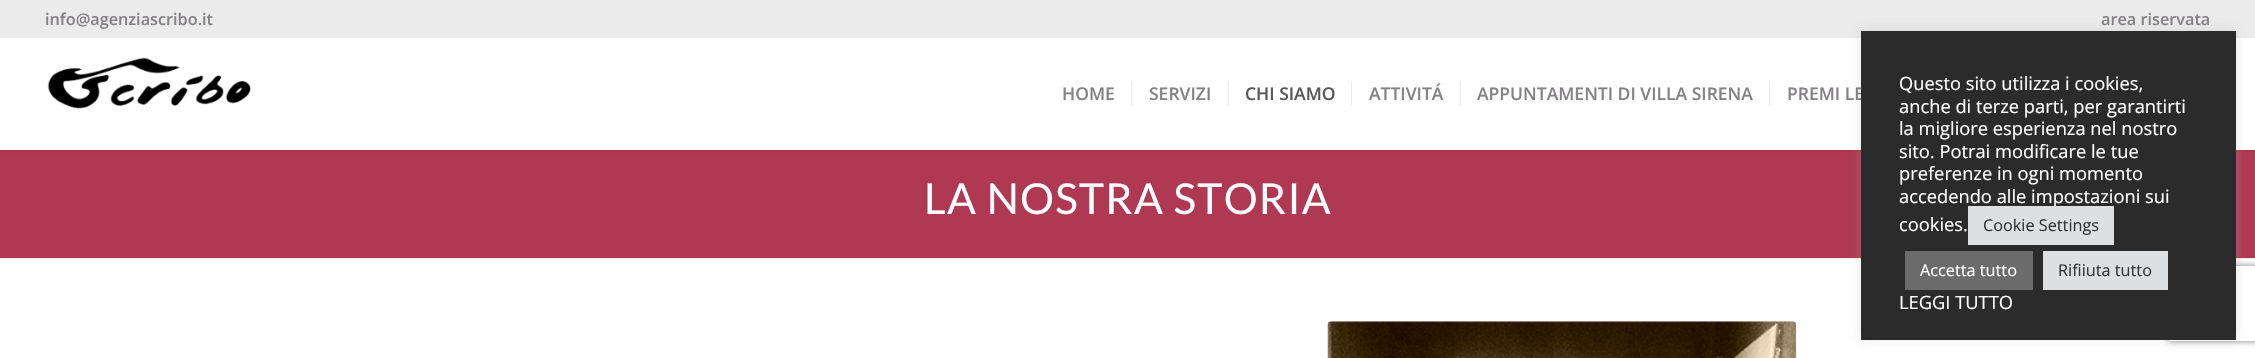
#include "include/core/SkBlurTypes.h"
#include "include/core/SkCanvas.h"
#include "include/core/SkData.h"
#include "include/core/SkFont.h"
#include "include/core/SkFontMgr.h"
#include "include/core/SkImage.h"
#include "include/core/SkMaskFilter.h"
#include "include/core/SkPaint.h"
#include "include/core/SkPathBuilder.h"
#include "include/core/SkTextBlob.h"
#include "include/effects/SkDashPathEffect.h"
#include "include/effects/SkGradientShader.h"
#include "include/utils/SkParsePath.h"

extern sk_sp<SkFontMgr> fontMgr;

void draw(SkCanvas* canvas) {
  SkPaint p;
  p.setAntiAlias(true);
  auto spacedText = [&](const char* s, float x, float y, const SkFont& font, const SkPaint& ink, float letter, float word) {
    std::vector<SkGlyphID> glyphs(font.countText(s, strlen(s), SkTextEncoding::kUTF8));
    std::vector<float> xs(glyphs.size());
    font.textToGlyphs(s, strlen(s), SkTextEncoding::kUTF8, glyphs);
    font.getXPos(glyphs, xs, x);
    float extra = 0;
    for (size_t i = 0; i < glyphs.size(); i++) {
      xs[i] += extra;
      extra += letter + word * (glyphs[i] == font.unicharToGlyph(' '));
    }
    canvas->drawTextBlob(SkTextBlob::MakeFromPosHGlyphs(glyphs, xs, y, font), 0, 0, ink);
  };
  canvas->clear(SK_ColorWHITE);
  p.setColor(SkColorSetRGB(175, 56, 82));
  canvas->drawRect(SkRect::MakeLTRB(0, 150, 2255, 258), p);
  p.setColor(SkColorSetARGB(26, 0, 0, 0));
  p.setMaskFilter(SkMaskFilter::MakeBlur(kNormal_SkBlurStyle, 1));
  canvas->drawRect(SkRect::MakeLTRB(-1, -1, 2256, 151), p);
  p.setMaskFilter(nullptr);
  p.setColor(SkColorSetRGB(235, 235, 235));
  canvas->drawRect(SkRect::MakeLTRB(0, 0, 2255, 38), p);
  p.setColor(SK_ColorWHITE);
  canvas->drawRect(SkRect::MakeLTRB(0, 38, 2255, 150), p);
  canvas->drawImageRect(SkImages::DeferredFromEncodedData(SkData::MakeFromFileName("images/1.png")), SkRect::MakeLTRB(47, 57, 251, 109), SkSamplingOptions());
  p.setColor(SkColorSetRGB(235, 235, 235));
  canvas->drawRect(SkRect::MakeLTRB(1131, 81, 1132, 105), p);
  canvas->drawRect(SkRect::MakeLTRB(1228, 81, 1229, 105), p);
  canvas->drawRect(SkRect::MakeLTRB(1351, 81, 1352, 105), p);
  canvas->drawRect(SkRect::MakeLTRB(1460, 81, 1461, 105), p);
  canvas->drawRect(SkRect::MakeLTRB(1769, 81, 1770, 105), p);
  canvas->drawRect(SkRect::MakeLTRB(0, 258, 2255, 259), p);
  canvas->drawImageRect(SkImages::DeferredFromEncodedData(SkData::MakeFromFileName("images/2.png")), SkRect::MakeLTRB(1327, 321, 1797, 358), SkSamplingOptions());
  p.setColor(SkColorSetARGB(77, 172, 171, 171));
  p.setMaskFilter(SkMaskFilter::MakeBlur(kNormal_SkBlurStyle, 6));
  canvas->drawRect(SkRect::MakeLTRB(1861, 30, 2236, 339), p);
  p.setMaskFilter(nullptr);
  canvas->save();
  canvas->clipPath(SkPathBuilder(SkPathFillType::kEvenOdd).moveTo(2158, 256).lineTo(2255, 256).lineTo(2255, 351).lineTo(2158, 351).close().moveTo(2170.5f, 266).lineTo(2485.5f, 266).cubicTo(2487, 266, 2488, 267, 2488, 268.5f).lineTo(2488, 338.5f).cubicTo(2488, 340, 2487, 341, 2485.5f, 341).lineTo(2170.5f, 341).cubicTo(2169, 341, 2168, 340, 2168, 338.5f).lineTo(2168, 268.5f).cubicTo(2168, 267, 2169, 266, 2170.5f, 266).close().detach(), true);
  p.setColor(SkColorSetRGB(128, 128, 128));
  p.setMaskFilter(SkMaskFilter::MakeBlur(kNormal_SkBlurStyle, 3));
  canvas->drawRoundRect(SkRect::MakeLTRB(2168, 266, 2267, 341), 2.5f, 2.5f, p);
  p.setMaskFilter(nullptr);
  canvas->restore();
  SkFont font1(fontMgr->matchFamilyStyle("Open Sans", SkFontStyle(600, SkFontStyle::kNormal_Width, SkFontStyle::kUpright_Slant)), 16.25f);
  font1.setSubpixel(true);
  p.setColor(SkColorSetRGB(133, 130, 133));
  canvas->drawString("info@agenziascribo.it", 45, 25, font1, p);
  canvas->drawString("area riservata", 2101, 25, font1, p);
  SkFont font2(fontMgr->matchFamilyStyle("Open Sans", SkFontStyle(600, SkFontStyle::kNormal_Width, SkFontStyle::kUpright_Slant)), 17.5f);
  font2.setSubpixel(true);
  canvas->drawString("HOME", 1062, 100, font2, p);
  canvas->drawString("SERVIZI", 1149, 100, font2, p);
  p.setColor(SkColorSetRGB(87, 87, 87));
  canvas->drawString("CHI SIAMO", 1245, 100, font2, p);
  p.setColor(SkColorSetRGB(133, 130, 133));
  canvas->drawString("ATTIVITÁ", 1369, 100, font2, p);
  canvas->drawString("APPUNTAMENTI DI VILLA SIRENA", 1477, 100, font2, p);
  canvas->drawString("PREMI LE", 1787, 100, font2, p);
  SkFont font3(fontMgr->matchFamilyStyle("Lato", SkFontStyle::Normal()), 42.5f);
  font3.setSubpixel(true);
  p.setColor(SK_ColorWHITE);
  spacedText("LA NOSTRA STORIA", 924, 214, font3, p, 1.25f, 0);
  p.setColor(SkColorSetRGB(43, 43, 43));
  canvas->drawRect(SkRect::MakeLTRB(1861, 31, 2236, 340), p);
  SkFont font4(fontMgr->matchFamilyStyle("Open Sans", SkFontStyle::Normal()), 18.3f);
  font4.setSubpixel(true);
  p.setColor(SK_ColorWHITE);
  canvas->drawString("Questo sito utilizza i cookies,", 1899, 90, font4, p);
  canvas->drawString("anche di terze parti, per garantirti", 1899, 113, font4, p);
  canvas->drawString("la migliore esperienza nel nostro", 1899, 135, font4, p);
  canvas->drawString("sito. Potrai modificare le tue", 1899, 158, font4, p);
  canvas->drawString("preferenze in ogni momento", 1899, 180, font4, p);
  canvas->drawString("accedendo alle impostazioni sui", 1899, 203, font4, p);
  canvas->drawString("cookies.", 1899, 231, font4, p);
  p.setColor(SkColorSetRGB(222, 223, 224));
  canvas->drawRect(SkRect::MakeLTRB(1968, 206, 2114, 245), p);
  SkFont font5(fontMgr->matchFamilyStyle("Open Sans", SkFontStyle::Normal()), 16.25f);
  font5.setSubpixel(true);
  p.setColor(SkColorSetRGB(51, 51, 51));
  canvas->drawString("Cookie Settings", 1983, 231, font5, p);
  p.setColor(SkColorSetRGB(107, 107, 107));
  canvas->drawRect(SkRect::MakeLTRB(1905, 251, 2033, 290), p);
  p.setColor(SK_ColorWHITE);
  canvas->drawString("Accetta tutto", 1920, 276, font5, p);
  p.setColor(SkColorSetRGB(222, 223, 224));
  canvas->drawRect(SkRect::MakeLTRB(2043, 251, 2168, 290), p);
  p.setColor(SkColorSetRGB(51, 51, 51));
  canvas->drawString("Rifiiuta tutto", 2058, 276, font5, p);
  p.setColor(SK_ColorWHITE);
  canvas->drawString("LEGGI TUTTO", 1899, 309, font4, p);
}
